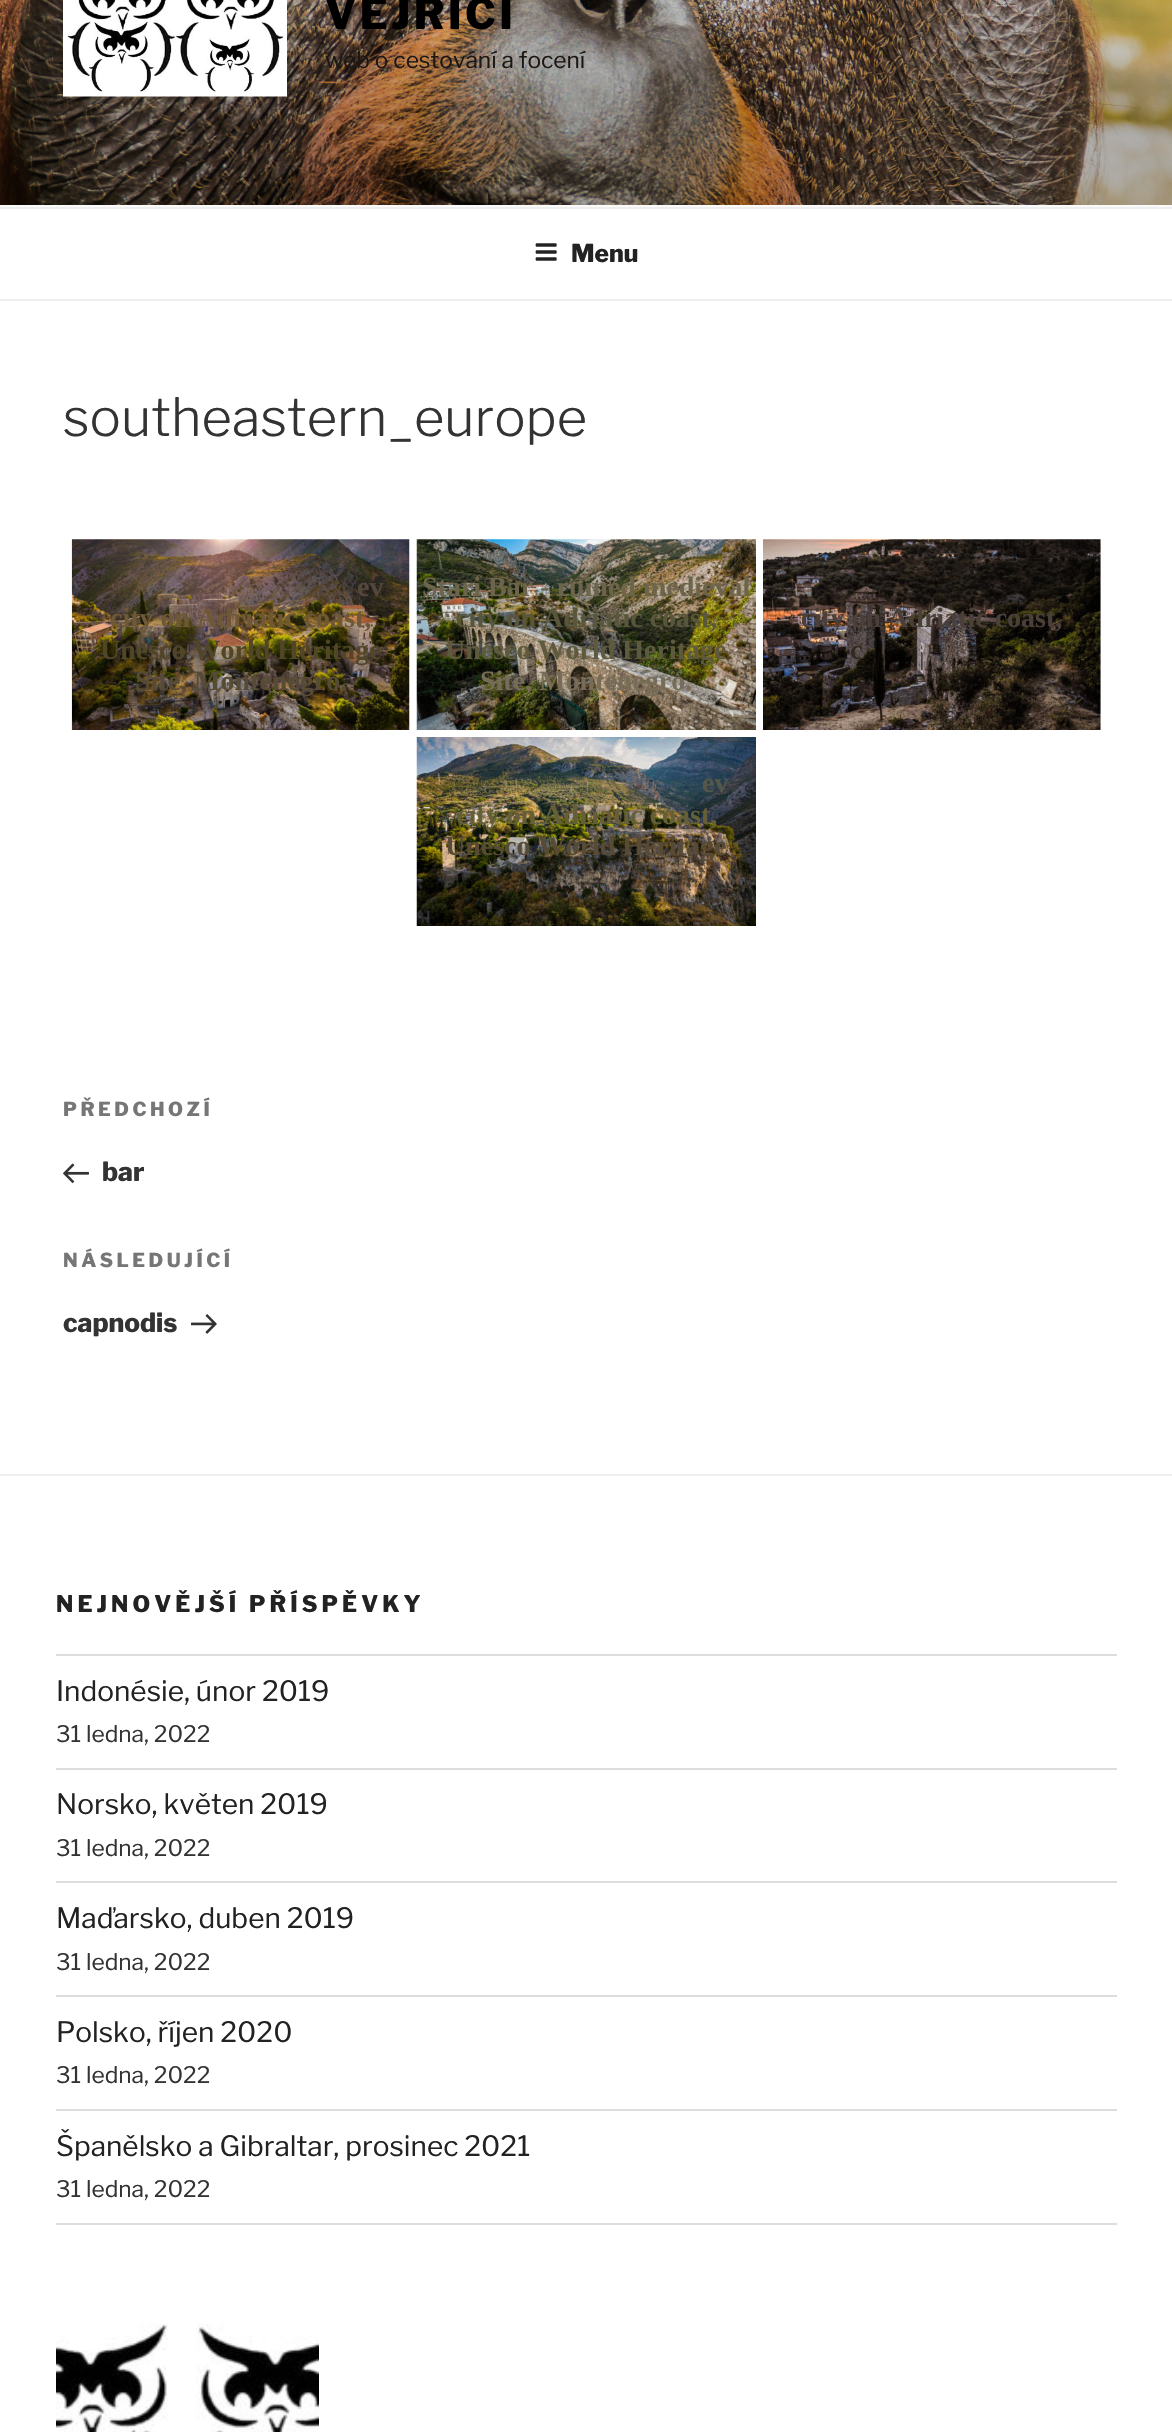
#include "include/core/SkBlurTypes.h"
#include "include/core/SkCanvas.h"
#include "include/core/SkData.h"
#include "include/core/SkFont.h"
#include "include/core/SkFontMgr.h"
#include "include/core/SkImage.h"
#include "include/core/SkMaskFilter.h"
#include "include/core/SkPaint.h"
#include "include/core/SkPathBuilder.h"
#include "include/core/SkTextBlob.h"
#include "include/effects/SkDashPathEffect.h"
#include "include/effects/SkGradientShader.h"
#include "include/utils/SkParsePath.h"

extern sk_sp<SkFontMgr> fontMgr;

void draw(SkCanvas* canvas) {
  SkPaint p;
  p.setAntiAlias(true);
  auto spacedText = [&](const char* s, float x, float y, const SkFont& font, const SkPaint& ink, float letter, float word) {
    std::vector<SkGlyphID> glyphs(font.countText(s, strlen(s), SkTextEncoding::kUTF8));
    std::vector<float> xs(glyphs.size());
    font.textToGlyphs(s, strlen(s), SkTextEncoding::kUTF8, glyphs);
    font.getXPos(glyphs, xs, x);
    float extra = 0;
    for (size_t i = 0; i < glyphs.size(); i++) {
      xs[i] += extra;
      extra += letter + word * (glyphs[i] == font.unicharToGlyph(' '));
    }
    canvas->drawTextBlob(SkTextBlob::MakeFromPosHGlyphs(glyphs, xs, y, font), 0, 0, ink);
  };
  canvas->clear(SK_ColorWHITE);
  p.setColor(SkColorSetRGB(250, 250, 250));
  canvas->drawRect(SkRect::MakeLTRB(0, 205, 1172, 207), p);
  canvas->drawImageRect(SkImages::DeferredFromEncodedData(SkData::MakeFromFileName("images/1.png")), SkRect::MakeLTRB(0, 0, 1172, 205), SkSamplingOptions());
  canvas->drawImageRect(SkImages::DeferredFromEncodedData(SkData::MakeFromFileName("images/2.png")), SkRect::MakeLTRB(63, 0, 287, 97), SkSamplingOptions());
  p.setColor(SkColorSetRGB(238, 238, 238));
  canvas->drawRect(SkRect::MakeLTRB(0, 207, 1172, 209), p);
  canvas->drawRect(SkRect::MakeLTRB(0, 299, 1172, 301), p);
  canvas->drawImageRect(SkImages::DeferredFromEncodedData(SkData::MakeFromFileName("images/3.png")), SkRect::MakeLTRB(535, 243, 557, 261), SkSamplingOptions());
  canvas->drawImageRect(SkImages::DeferredFromEncodedData(SkData::MakeFromFileName("images/4.png")), SkRect::MakeLTRB(71, 539, 410, 730), SkSamplingOptions());
  canvas->drawImageRect(SkImages::DeferredFromEncodedData(SkData::MakeFromFileName("images/5.png")), SkRect::MakeLTRB(416, 539, 756, 730), SkSamplingOptions());
  canvas->drawImageRect(SkImages::DeferredFromEncodedData(SkData::MakeFromFileName("images/6.png")), SkRect::MakeLTRB(763, 539, 1101, 730), SkSamplingOptions());
  canvas->drawImageRect(SkImages::DeferredFromEncodedData(SkData::MakeFromFileName("images/7.png")), SkRect::MakeLTRB(416, 737, 756, 926), SkSamplingOptions());
  canvas->drawImageRect(SkImages::DeferredFromEncodedData(SkData::MakeFromFileName("images/8.png")), SkRect::MakeLTRB(63, 1163, 89, 1184), SkSamplingOptions());
  canvas->drawImageRect(SkImages::DeferredFromEncodedData(SkData::MakeFromFileName("images/9.png")), SkRect::MakeLTRB(191, 1314, 217, 1334), SkSamplingOptions());
  canvas->drawRect(SkRect::MakeLTRB(0, 1474, 1172, 1476), p);
  p.setColor(SkColorSetRGB(221, 221, 221));
  canvas->drawRect(SkRect::MakeLTRB(56, 1654, 1117, 1656), p);
  canvas->drawRect(SkRect::MakeLTRB(56, 1768, 1117, 1770), p);
  canvas->drawRect(SkRect::MakeLTRB(56, 1881, 1117, 1883), p);
  canvas->drawRect(SkRect::MakeLTRB(56, 1995, 1117, 1997), p);
  canvas->drawRect(SkRect::MakeLTRB(56, 2109, 1117, 2111), p);
  canvas->drawRect(SkRect::MakeLTRB(56, 2223, 1117, 2225), p);
  canvas->drawImageRect(SkImages::DeferredFromEncodedData(SkData::MakeFromFileName("images/10.png")), SkRect::MakeLTRB(56, 2323, 319, 2432), SkSamplingOptions());
  SkFont font1(fontMgr->matchFamilyStyle("Libre Franklin", SkFontStyle(800, SkFontStyle::kNormal_Width, SkFontStyle::kUpright_Slant)), 42);
  font1.setSubpixel(true);
  p.setColor(SK_ColorBLACK);
  spacedText("VEJŘÍCI", 325, 29, font1, p, 3.5f, 0);
  SkFont font2(fontMgr->matchFamilyStyle("Libre Franklin", SkFontStyle::Normal()), 22.75f);
  font2.setSubpixel(true);
  p.setColor(SkColorSetRGB(28, 23, 19));
  canvas->drawString("web o cestování a focení", 325, 68, font2, p);
  SkFont font3(fontMgr->matchFamilyStyle("Libre Franklin", SkFontStyle(800, SkFontStyle::kNormal_Width, SkFontStyle::kUpright_Slant)), 24.5f);
  font3.setSubpixel(true);
  p.setColor(SkColorSetRGB(34, 34, 34));
  canvas->drawString("Menu", 571, 262, font3, p);
  SkFont font4(fontMgr->matchFamilyStyle("Libre Franklin", SkFontStyle(300, SkFontStyle::kNormal_Width, SkFontStyle::kUpright_Slant)), 52.5f);
  font4.setSubpixel(true);
  p.setColor(SkColorSetRGB(51, 51, 51));
  canvas->drawString("southeastern_europe", 63, 436, font4, p);
  SkFont font5(fontMgr->matchFamilyStyle("Liberation Serif", SkFontStyle::Bold()), 28);
  font5.setSubpixel(true);
  p.setColor(SkColorSetRGB(86, 71, 61));
  canvas->drawString("ev", 357, 596, font5, p);
  p.setColor(SkColorSetRGB(110, 88, 53));
  canvas->drawString("city on Adriatic coast,", 110, 627, font5, p);
  p.setColor(SkColorSetRGB(81, 70, 39));
  canvas->drawString("Unesco World Heritage", 100, 659, font5, p);
  p.setColor(SkColorSetRGB(87, 75, 54));
  canvas->drawString("Site, Montenegro.", 135, 690, font5, p);
  p.setColor(SkColorSetRGB(108, 101, 75));
  canvas->drawString("Stari Bar - ruined medieval", 422, 596, font5, p);
  p.setColor(SkColorSetRGB(88, 86, 59));
  canvas->drawString("city on Adriatic coast,", 456, 627, font5, p);
  p.setColor(SkColorSetRGB(94, 90, 61));
  canvas->drawString("Unesco World Heritage", 445, 659, font5, p);
  p.setColor(SkColorSetRGB(118, 108, 87));
  canvas->drawString("Site, Montenegro.", 480, 690, font5, p);
  p.setColor(SkColorSetRGB(75, 64, 57));
  canvas->drawString("city on Adriatic coast,", 801, 627, font5, p);
  p.setColor(SkColorSetRGB(50, 43, 35));
  canvas->drawString("c", 850, 659, font5, p);
  p.setColor(SkColorSetRGB(85, 88, 73));
  canvas->drawString("ev", 702, 792, font5, p);
  p.setColor(SkColorSetRGB(101, 95, 57));
  canvas->drawString("city on Adriatic coast,", 456, 824, font5, p);
  p.setColor(SkColorSetRGB(87, 75, 54));
  canvas->drawString("Unesco World Heritage", 445, 855, font5, p);
  p.setColor(SkColorSetRGB(70, 61, 48));
  canvas->drawString(".", 685, 887, font5, p);
  SkFont font6(fontMgr->matchFamilyStyle("Libre Franklin", SkFontStyle(800, SkFontStyle::kNormal_Width, SkFontStyle::kUpright_Slant)), 19.25f);
  font6.setSubpixel(true);
  p.setColor(SkColorSetRGB(118, 118, 118));
  spacedText("PŘEDCHOZÍ", 63, 1116, font6, p, 3.5f, 0);
  SkFont font7(fontMgr->matchFamilyStyle("Libre Franklin", SkFontStyle(800, SkFontStyle::kNormal_Width, SkFontStyle::kUpright_Slant)), 26.25f);
  font7.setSubpixel(true);
  p.setColor(SkColorSetRGB(51, 51, 51));
  canvas->drawString("bar", 102, 1181, font7, p);
  p.setColor(SkColorSetRGB(118, 118, 118));
  spacedText("NÁSLEDUJÍCÍ", 63, 1267, font6, p, 3.5f, 0);
  p.setColor(SkColorSetRGB(51, 51, 51));
  canvas->drawString("capnodis", 63, 1332, font7, p);
  SkFont font8(fontMgr->matchFamilyStyle("Libre Franklin", SkFontStyle(800, SkFontStyle::kNormal_Width, SkFontStyle::kUpright_Slant)), 22.75f);
  font8.setSubpixel(true);
  p.setColor(SkColorSetRGB(34, 34, 34));
  spacedText("NEJNOVĚJŠÍ PŘÍSPĚVKY", 56, 1612, font8, p, 4.1f, 0);
  SkFont font9(fontMgr->matchFamilyStyle("Libre Franklin", SkFontStyle::Normal()), 28);
  font9.setSubpixel(true);
  canvas->drawString("Indonésie, únor 2019", 56, 1701, font9, p);
  p.setColor(SkColorSetRGB(51, 51, 51));
  canvas->drawString("31 ledna, 2022", 56, 1742, font2, p);
  p.setColor(SkColorSetRGB(34, 34, 34));
  canvas->drawString("Norsko, květen 2019", 56, 1814, font9, p);
  p.setColor(SkColorSetRGB(51, 51, 51));
  canvas->drawString("31 ledna, 2022", 56, 1856, font2, p);
  p.setColor(SkColorSetRGB(34, 34, 34));
  canvas->drawString("Maďarsko, duben 2019", 56, 1928, font9, p);
  p.setColor(SkColorSetRGB(51, 51, 51));
  canvas->drawString("31 ledna, 2022", 56, 1970, font2, p);
  p.setColor(SkColorSetRGB(34, 34, 34));
  canvas->drawString("Polsko, říjen 2020", 56, 2042, font9, p);
  p.setColor(SkColorSetRGB(51, 51, 51));
  canvas->drawString("31 ledna, 2022", 56, 2083, font2, p);
  p.setColor(SkColorSetRGB(34, 34, 34));
  canvas->drawString("Španělsko a Gibraltar, prosinec 2021", 56, 2156, font9, p);
  p.setColor(SkColorSetRGB(51, 51, 51));
  canvas->drawString("31 ledna, 2022", 56, 2197, font2, p);
}
